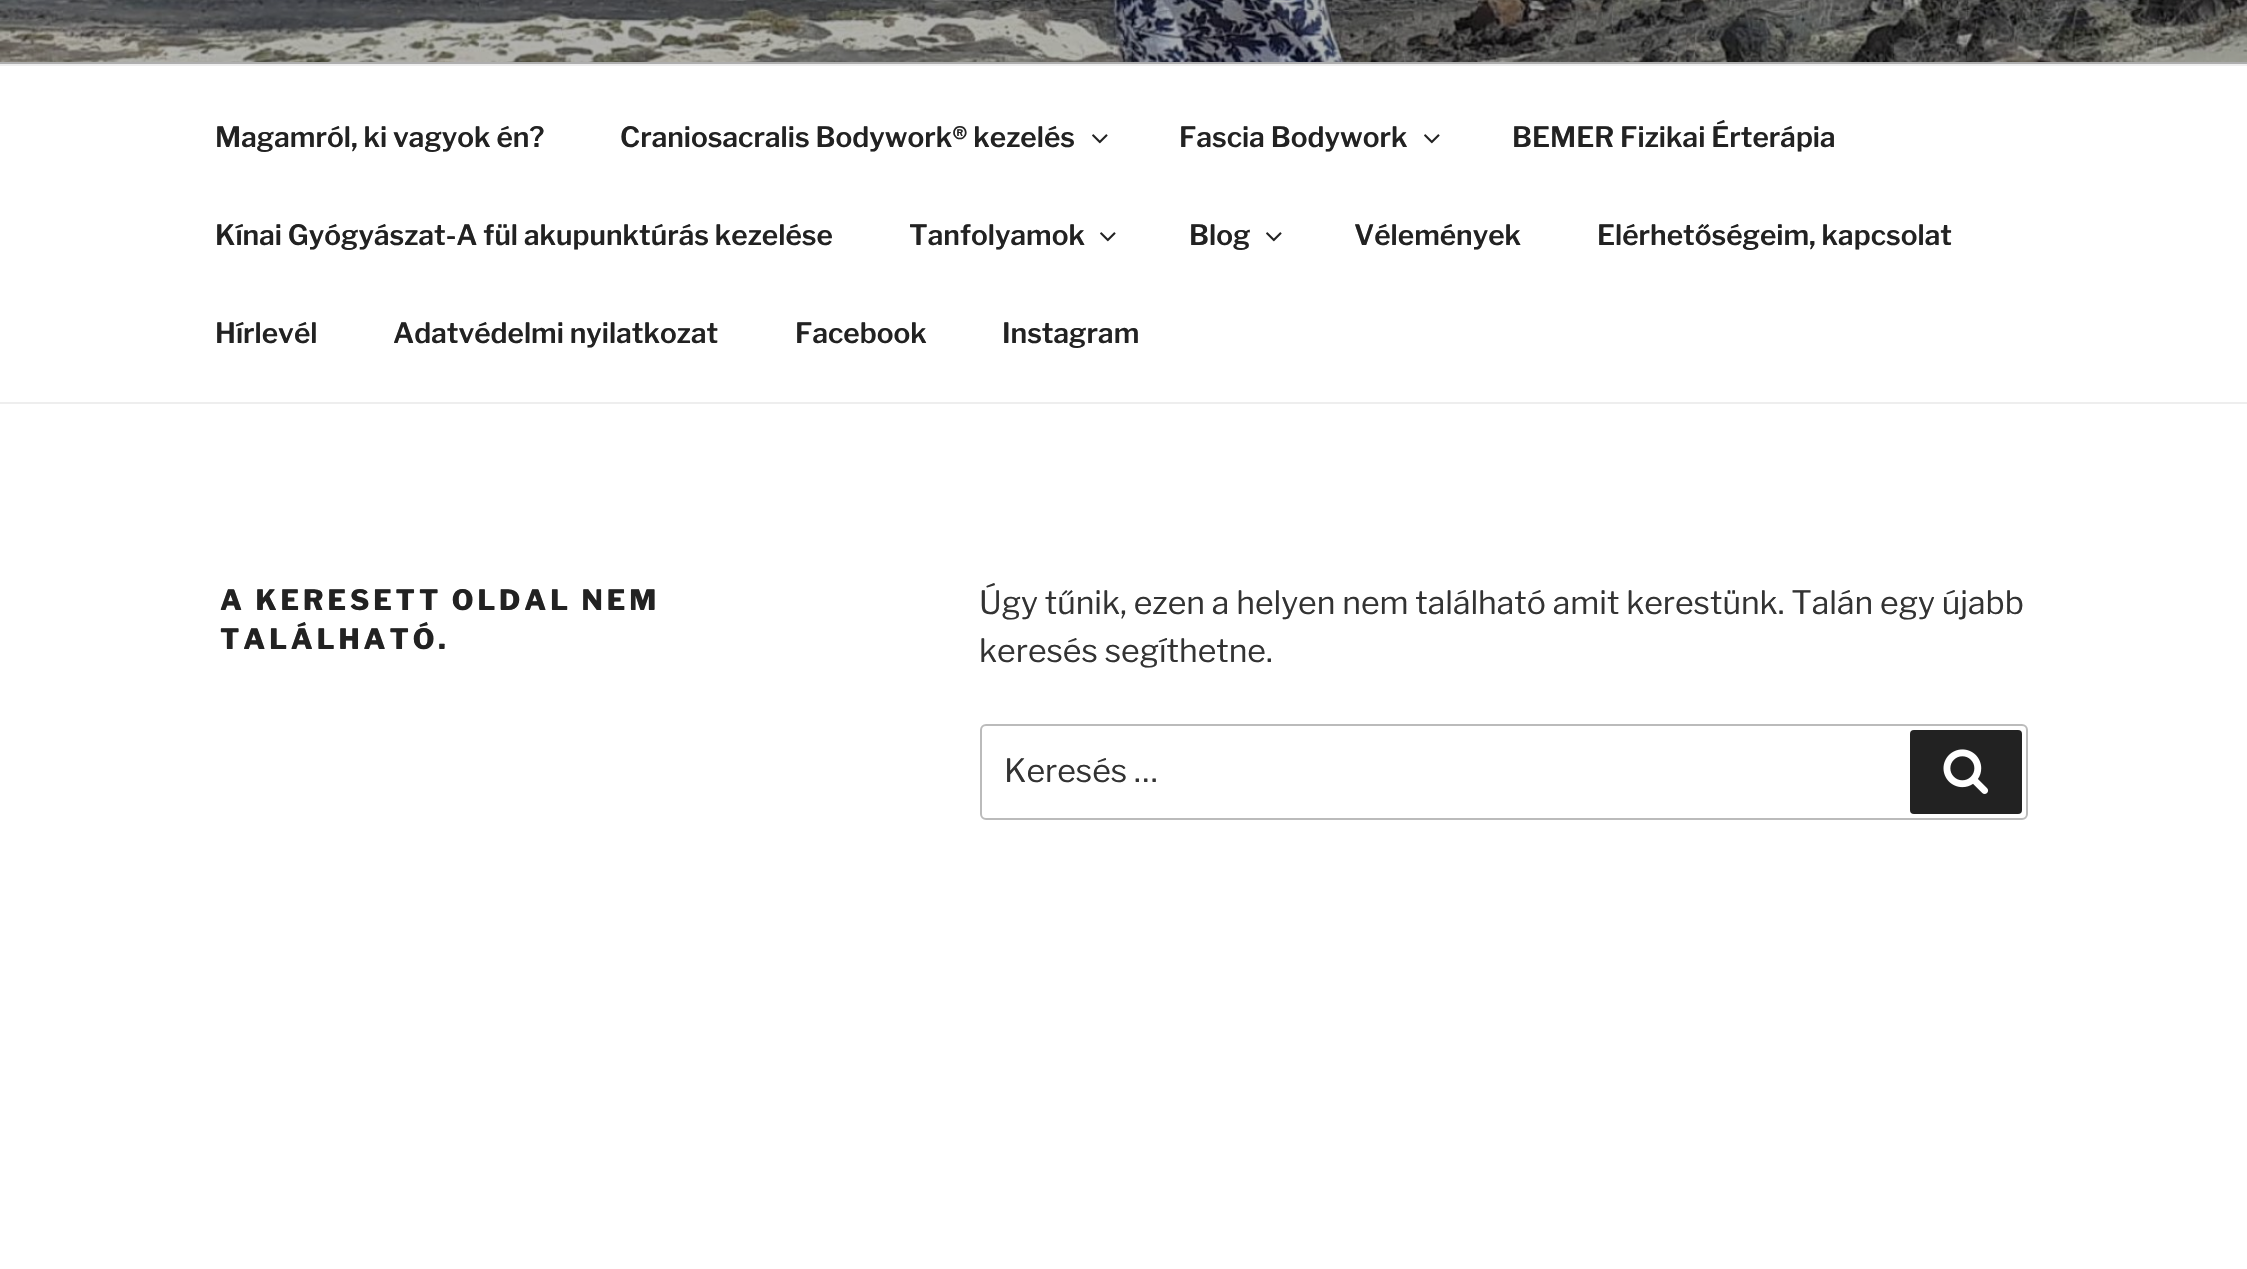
#include "include/core/SkBlurTypes.h"
#include "include/core/SkCanvas.h"
#include "include/core/SkData.h"
#include "include/core/SkFont.h"
#include "include/core/SkFontMgr.h"
#include "include/core/SkImage.h"
#include "include/core/SkMaskFilter.h"
#include "include/core/SkPaint.h"
#include "include/core/SkPathBuilder.h"
#include "include/core/SkTextBlob.h"
#include "include/effects/SkDashPathEffect.h"
#include "include/effects/SkGradientShader.h"
#include "include/utils/SkParsePath.h"

extern sk_sp<SkFontMgr> fontMgr;

void draw(SkCanvas* canvas) {
  SkPaint p;
  p.setAntiAlias(true);
  auto spacedText = [&](const char* s, float x, float y, const SkFont& font, const SkPaint& ink, float letter, float word) {
    std::vector<SkGlyphID> glyphs(font.countText(s, strlen(s), SkTextEncoding::kUTF8));
    std::vector<float> xs(glyphs.size());
    font.textToGlyphs(s, strlen(s), SkTextEncoding::kUTF8, glyphs);
    font.getXPos(glyphs, xs, x);
    float extra = 0;
    for (size_t i = 0; i < glyphs.size(); i++) {
      xs[i] += extra;
      extra += letter + word * (glyphs[i] == font.unicharToGlyph(' '));
    }
    canvas->drawTextBlob(SkTextBlob::MakeFromPosHGlyphs(glyphs, xs, y, font), 0, 0, ink);
  };
  canvas->clear(SK_ColorWHITE);
  p.setColor(SkColorSetRGB(250, 250, 250));
  canvas->drawRect(SkRect::MakeLTRB(0, 62, 2247, 64), p);
  canvas->drawImageRect(SkImages::DeferredFromEncodedData(SkData::MakeFromFileName("images/1.png")), SkRect::MakeLTRB(0, 0, 2247, 62), SkSamplingOptions());
  {
    const SkColor colors[] = {SkColorSetARGB(0, 0, 0, 0), SkColorSetARGB(77, 0, 0, 0), SkColorSetARGB(77, 0, 0, 0)};
    const float stops[] = {0, 0.75f, 1};
    const SkPoint ends[] = {{1124, -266}, {1124, 64}};
    p.setShader(SkGradientShader::MakeLinear(ends, colors, stops, 3, SkTileMode::kClamp));
    p.setAlpha(255);
  }
  canvas->drawRect(SkRect::MakeLTRB(0, 0, 2247, 64), p);
  p.setShader(nullptr);
  p.setColor(SkColorSetRGB(238, 238, 238));
  canvas->drawRect(SkRect::MakeLTRB(0, 64, 2247, 66), p);
  canvas->drawRect(SkRect::MakeLTRB(0, 402, 2247, 404), p);
  canvas->drawImageRect(SkImages::DeferredFromEncodedData(SkData::MakeFromFileName("images/2.png")), SkRect::MakeLTRB(1092, 134, 1108, 144), SkSamplingOptions());
  canvas->drawImageRect(SkImages::DeferredFromEncodedData(SkData::MakeFromFileName("images/2.png")), SkRect::MakeLTRB(1424, 134, 1440, 144), SkSamplingOptions());
  canvas->drawImageRect(SkImages::DeferredFromEncodedData(SkData::MakeFromFileName("images/2.png")), SkRect::MakeLTRB(1100, 232, 1116, 242), SkSamplingOptions());
  canvas->drawImageRect(SkImages::DeferredFromEncodedData(SkData::MakeFromFileName("images/2.png")), SkRect::MakeLTRB(1266, 232, 1282, 242), SkSamplingOptions());
  p.setStyle(SkPaint::kStroke_Style);
  p.setStrokeWidth(2);
  p.setColor(SkColorSetRGB(187, 187, 187));
  canvas->drawRoundRect(SkRect::MakeLTRB(981, 725, 2027, 819), 5, 5, p);
  p.setStyle(SkPaint::kFill_Style);
  p.setColor(SkColorSetRGB(34, 34, 34));
  canvas->drawRoundRect(SkRect::MakeLTRB(1910, 730, 2022, 814), 4, 4, p);
  canvas->drawImageRect(SkImages::DeferredFromEncodedData(SkData::MakeFromFileName("images/3.png")), SkRect::MakeLTRB(1943, 749, 1989, 794), SkSamplingOptions());
  SkFont font1(fontMgr->matchFamilyStyle("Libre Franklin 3", SkFontStyle(100, SkFontStyle::kNormal_Width, SkFontStyle::kUpright_Slant)), 28);
  font1.setSubpixel(true);
  canvas->drawString("Magamról, ki vagyok én?", 215, 147, font1, p);
  canvas->drawString("Craniosacralis Bodywork® kezelés", 620, 147, font1, p);
  canvas->drawString("Fascia Bodywork", 1179, 147, font1, p);
  canvas->drawString("BEMER Fizikai Érterápia", 1512, 147, font1, p);
  canvas->drawString("Kínai Gyógyászat-A fül akupunktúrás kezelése", 215, 245, font1, p);
  canvas->drawString("Tanfolyamok", 909, 245, font1, p);
  canvas->drawString("Blog", 1189, 245, font1, p);
  canvas->drawString("Vélemények", 1354, 245, font1, p);
  canvas->drawString("Elérhetőségeim, kapcsolat", 1597, 245, font1, p);
  canvas->drawString("Hírlevél", 215, 343, font1, p);
  canvas->drawString("Adatvédelmi nyilatkozat", 393, 343, font1, p);
  canvas->drawString("Facebook", 795, 343, font1, p);
  canvas->drawString("Instagram", 1002, 343, font1, p);
  SkFont font2(fontMgr->matchFamilyStyle("Libre Franklin", SkFontStyle(100, SkFontStyle::kNormal_Width, SkFontStyle::kUpright_Slant)), 28);
  font2.setSubpixel(true);
  spacedText("A KERESETT OLDAL NEM", 220, 610, font2, p, 3.9f, 0);
  spacedText("TALÁLHATÓ.", 220, 649, font2, p, 3.9f, 0);
  SkFont font3(fontMgr->matchFamilyStyle("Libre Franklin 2", SkFontStyle(100, SkFontStyle::kNormal_Width, SkFontStyle::kUpright_Slant)), 32);
  font3.setSubpixel(true);
  p.setColor(SkColorSetRGB(51, 51, 51));
  canvas->drawString("Úgy tűnik, ezen a helyen nem található amit kerestünk. Talán egy újabb", 979, 614, font3, p);
  canvas->drawString("keresés segíthetne.", 979, 662, font3, p);
  canvas->drawString("Keresés …", 1004, 782, font3, p);
}
